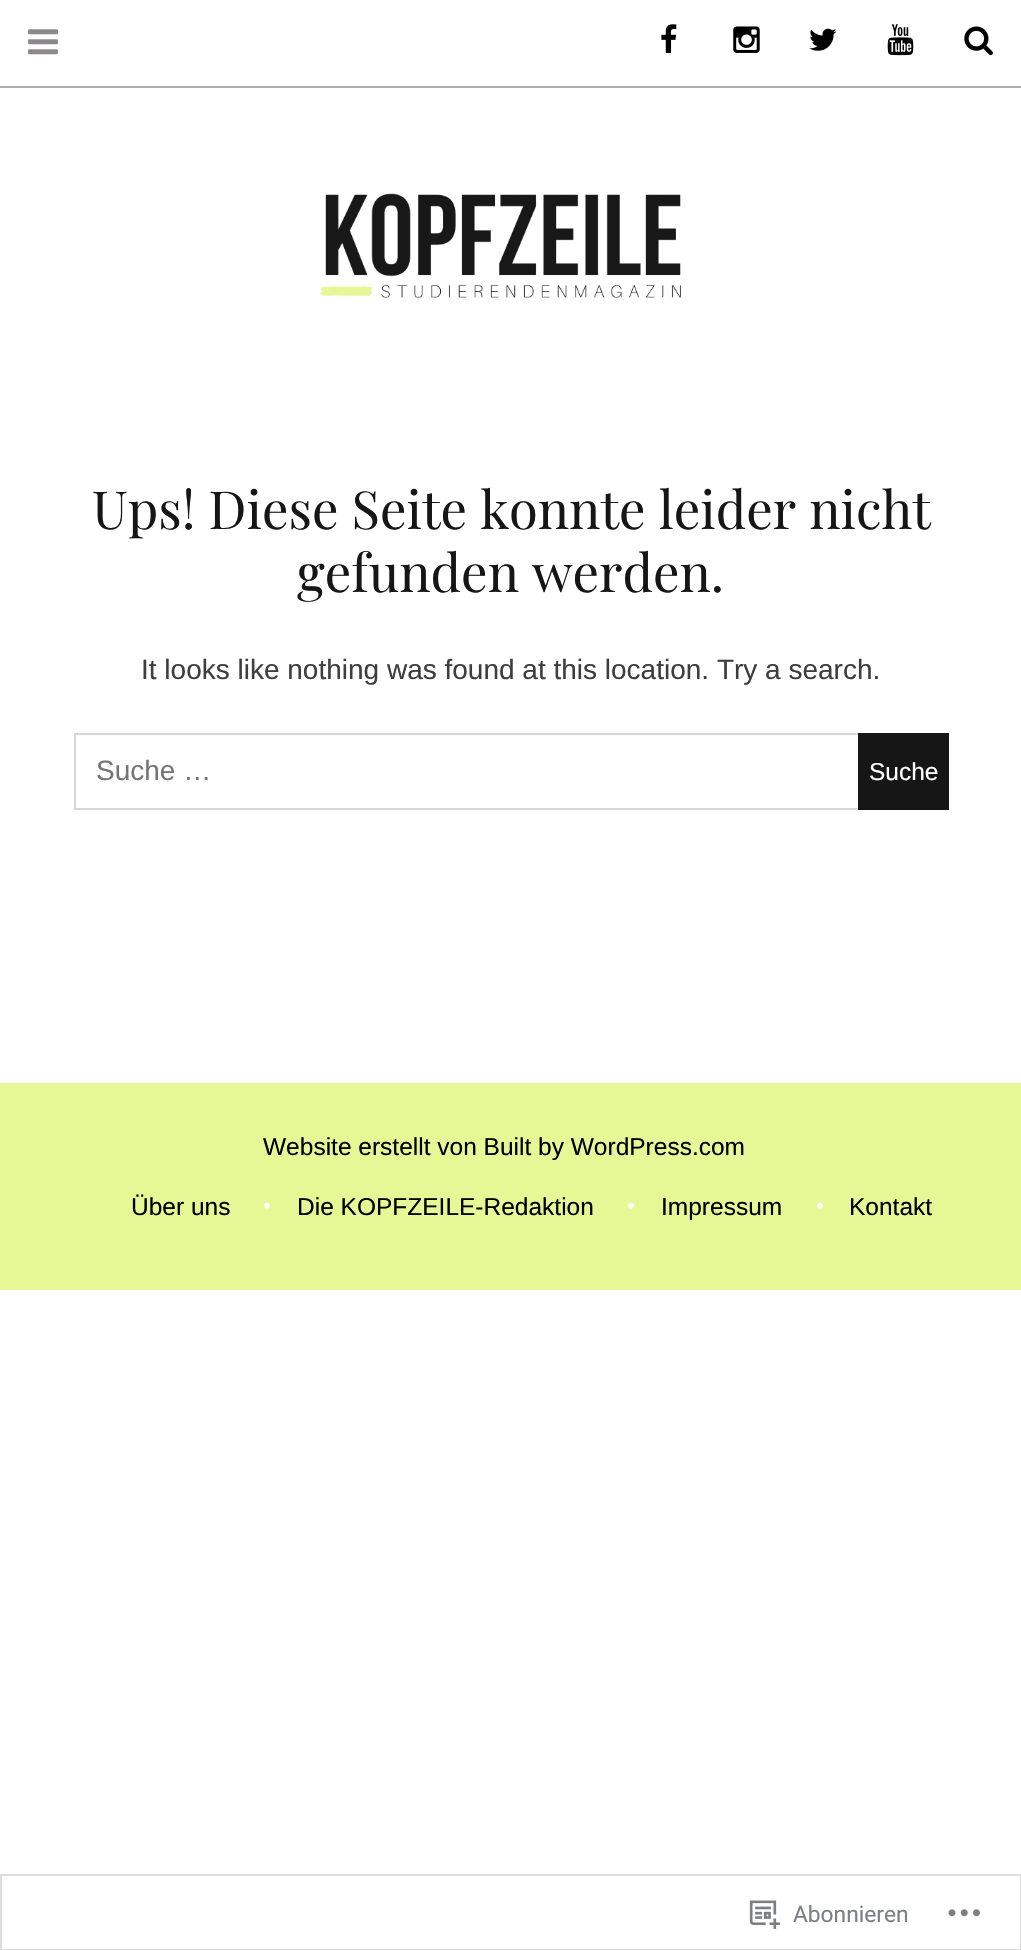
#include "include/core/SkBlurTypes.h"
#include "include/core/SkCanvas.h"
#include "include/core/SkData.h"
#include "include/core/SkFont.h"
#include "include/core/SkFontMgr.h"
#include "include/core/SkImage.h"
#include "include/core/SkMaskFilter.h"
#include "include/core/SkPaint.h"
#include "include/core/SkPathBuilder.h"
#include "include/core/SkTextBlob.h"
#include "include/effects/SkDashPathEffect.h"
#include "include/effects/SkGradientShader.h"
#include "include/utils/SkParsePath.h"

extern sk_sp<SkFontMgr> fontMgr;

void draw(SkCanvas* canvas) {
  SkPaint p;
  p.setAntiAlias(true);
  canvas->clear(SK_ColorWHITE);
  p.setColor(SkColorSetRGB(175, 175, 175));
  canvas->drawRect(SkRect::MakeLTRB(0, 86, 1021, 88), p);
  canvas->drawImageRect(SkImages::DeferredFromEncodedData(SkData::MakeFromFileName("images/1.png")), SkRect::MakeLTRB(661, 24, 677, 53), SkSamplingOptions());
  canvas->drawImageRect(SkImages::DeferredFromEncodedData(SkData::MakeFromFileName("images/2.png")), SkRect::MakeLTRB(733, 26, 760, 53), SkSamplingOptions());
  canvas->drawImageRect(SkImages::DeferredFromEncodedData(SkData::MakeFromFileName("images/3.png")), SkRect::MakeLTRB(809, 28, 837, 51), SkSamplingOptions());
  canvas->drawImageRect(SkImages::DeferredFromEncodedData(SkData::MakeFromFileName("images/4.png")), SkRect::MakeLTRB(887, 24, 914, 56), SkSamplingOptions());
  canvas->drawImageRect(SkImages::DeferredFromEncodedData(SkData::MakeFromFileName("images/5.png")), SkRect::MakeLTRB(964, 26, 993, 56), SkSamplingOptions());
  canvas->drawImageRect(SkImages::DeferredFromEncodedData(SkData::MakeFromFileName("images/6.png")), SkRect::MakeLTRB(28, 29, 58, 55), SkSamplingOptions());
  canvas->drawImageRect(SkImages::DeferredFromEncodedData(SkData::MakeFromFileName("images/7.png")), SkRect::MakeLTRB(319, 193, 681, 298), SkSamplingOptions());
  p.setStyle(SkPaint::kStroke_Style);
  p.setStrokeWidth(2);
  p.setColor(SkColorSetRGB(215, 215, 215));
  canvas->drawRect(SkRect::MakeLTRB(75, 734, 948, 809), p);
  p.setStyle(SkPaint::kFill_Style);
  p.setColor(SkColorSetRGB(23, 22, 23));
  canvas->drawRect(SkRect::MakeLTRB(858, 733, 949, 810), p);
  p.setColor(SkColorSetRGB(229, 248, 149));
  canvas->drawRect(SkRect::MakeLTRB(0, 1083, 1021, 1290), p);
  p.setStyle(SkPaint::kStroke_Style);
  p.setColor(SkColorSetRGB(221, 221, 223));
  canvas->drawRect(SkRect::MakeLTRB(1, 1875, 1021, 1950), p);
  canvas->drawImageRect(SkImages::DeferredFromEncodedData(SkData::MakeFromFileName("images/8.png")), SkRect::MakeLTRB(749, 1900, 781, 1929), SkSamplingOptions());
  canvas->drawImageRect(SkImages::DeferredFromEncodedData(SkData::MakeFromFileName("images/9.png")), SkRect::MakeLTRB(948, 1909, 980, 1917), SkSamplingOptions());
  SkFont font1(fontMgr->matchFamilyStyle("Playfair Display", SkFontStyle::Normal()), 52.5f);
  font1.setSubpixel(true);
  p.setStyle(SkPaint::kFill_Style);
  p.setColor(SkColorSetRGB(23, 22, 23));
  canvas->drawString("Ups! Diese Seite konnte leider nicht", 92, 529, font1, p);
  canvas->drawString("gefunden werden.", 297, 592, font1, p);
  SkFont font2(fontMgr->matchFamilyStyle("Arimo", SkFontStyle::Normal()), 28);
  font2.setSubpixel(true);
  p.setColor(SkColorSetRGB(61, 62, 64));
  canvas->drawString("It looks like nothing was found at this location. Try a search.", 141, 679, font2, p);
  p.setColor(SkColorSetRGB(117, 117, 117));
  canvas->drawString("Suche …", 96, 780, font2, p);
  SkFont font3(fontMgr->matchFamilyStyle("Arimo", SkFontStyle::Normal()), 24.5f);
  font3.setSubpixel(true);
  p.setColor(SK_ColorWHITE);
  canvas->drawString("Suche", 869, 780, font3, p);
  p.setColor(SK_ColorBLACK);
  canvas->drawString("Website erstellt von Built by WordPress.com", 263, 1155, font3, p);
  canvas->drawString("Über uns", 131, 1215, font3, p);
  SkFont font4(fontMgr->matchFamilyStyle("DejaVu Sans Mono", SkFontStyle::Normal()), 20);
  font4.setSubpixel(true);
  p.setColor(SK_ColorWHITE);
  canvas->drawString("•", 261, 1213, font4, p);
  p.setColor(SK_ColorBLACK);
  canvas->drawString("Die KOPFZEILE-Redaktion", 297, 1215, font3, p);
  p.setColor(SK_ColorWHITE);
  canvas->drawString("•", 625, 1213, font4, p);
  p.setColor(SK_ColorBLACK);
  canvas->drawString("Impressum", 661, 1215, font3, p);
  p.setColor(SK_ColorWHITE);
  canvas->drawString("•", 814, 1213, font4, p);
  p.setColor(SK_ColorBLACK);
  canvas->drawString("Kontakt", 849, 1215, font3, p);
  SkFont font5(fontMgr->matchFamilyStyle("Roboto", SkFontStyle::Normal()), 22.75f);
  font5.setSubpixel(true);
  p.setColor(SkColorSetRGB(123, 127, 133));
  canvas->drawString("Abonnieren", 793, 1922, font5, p);
}
